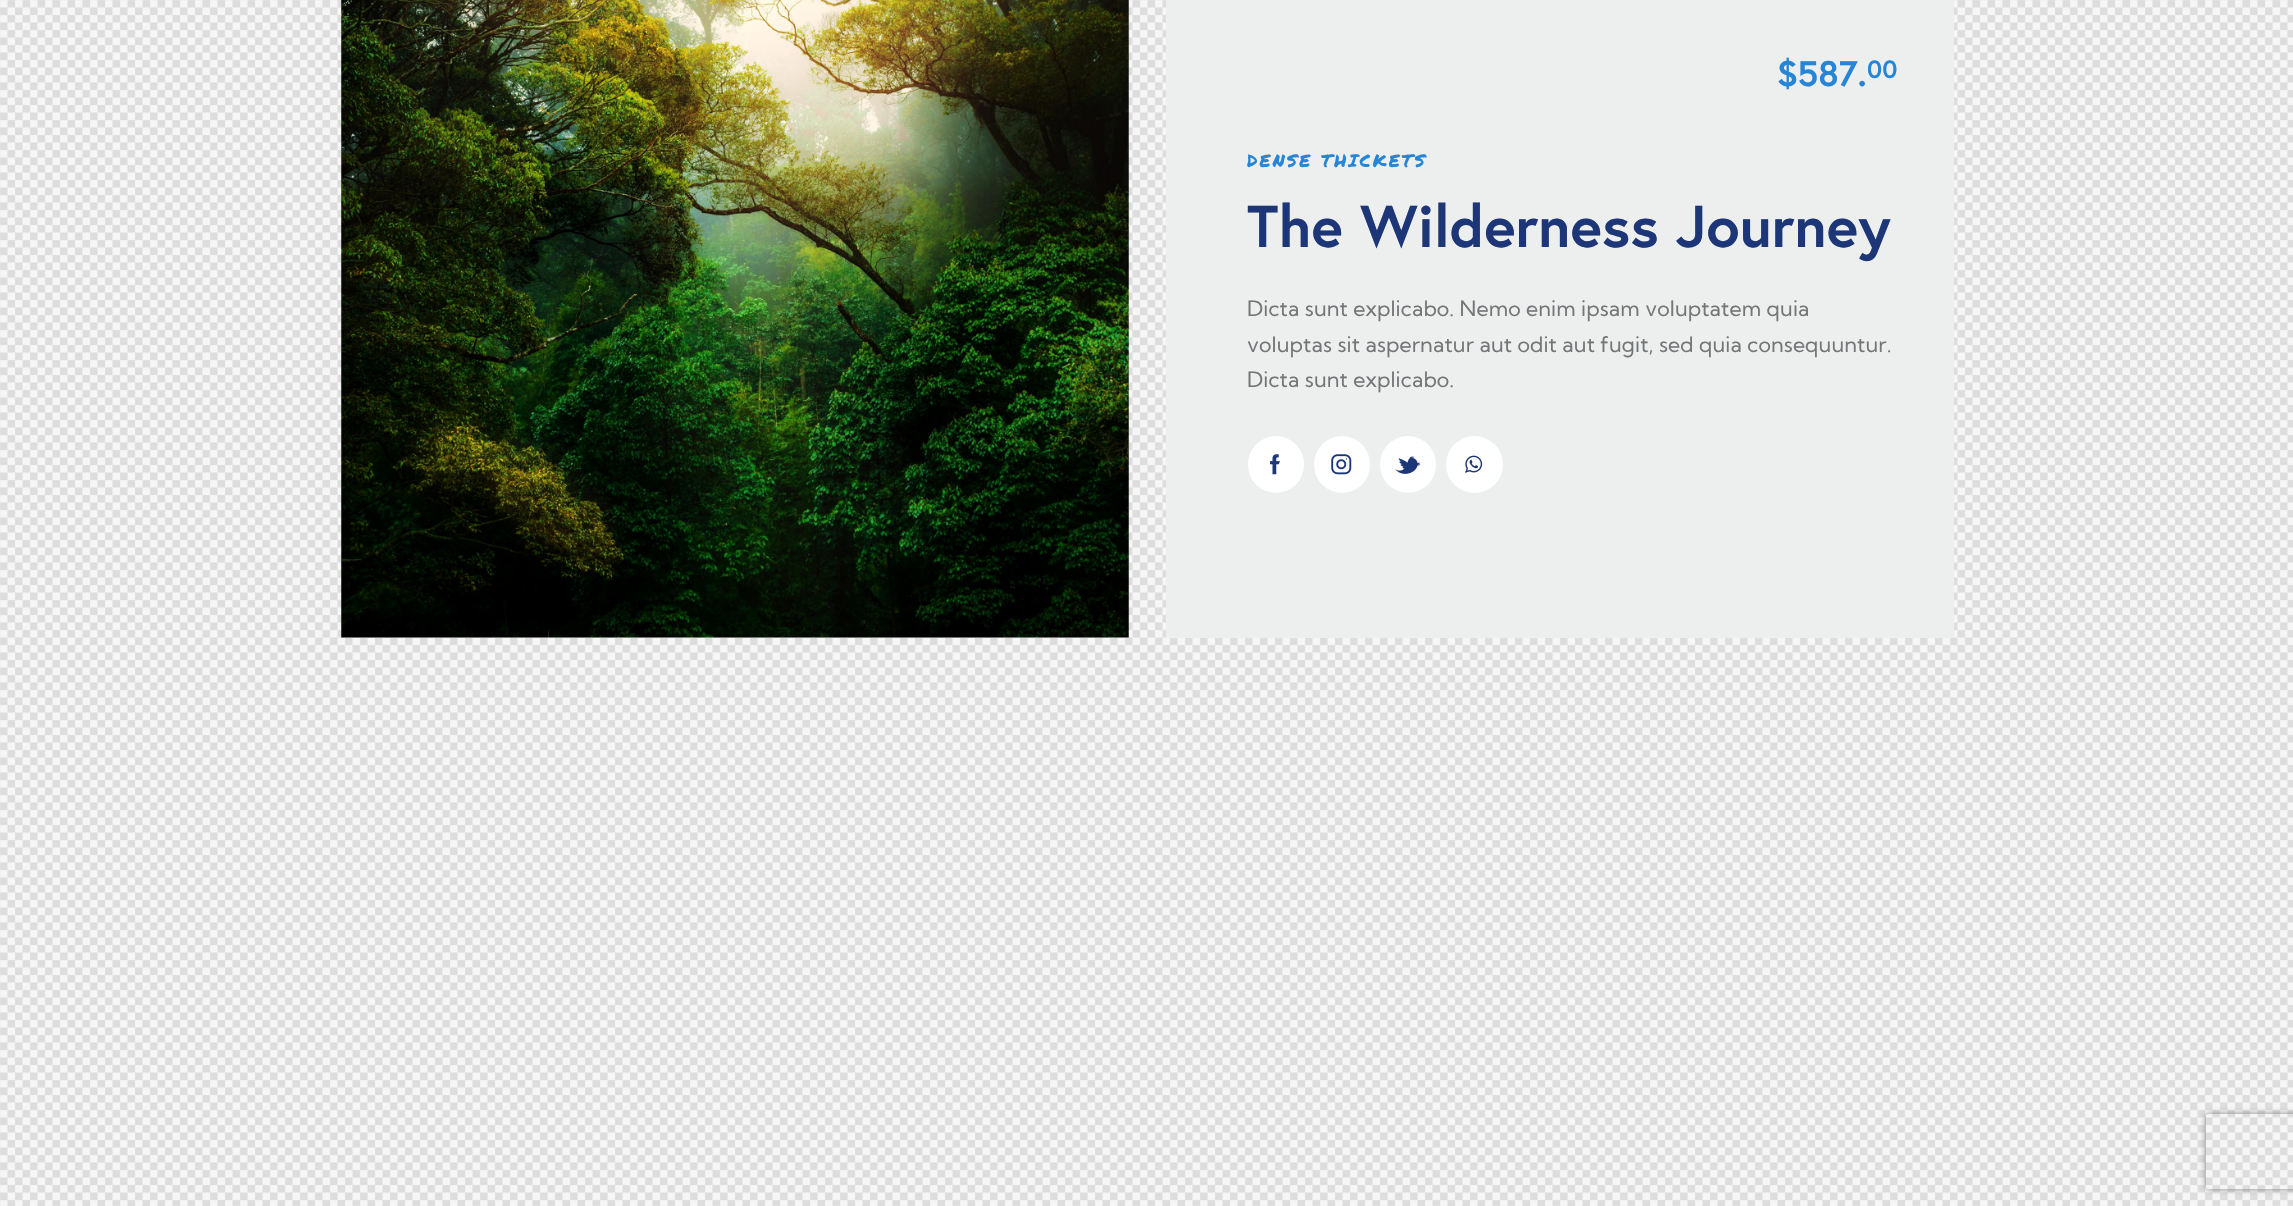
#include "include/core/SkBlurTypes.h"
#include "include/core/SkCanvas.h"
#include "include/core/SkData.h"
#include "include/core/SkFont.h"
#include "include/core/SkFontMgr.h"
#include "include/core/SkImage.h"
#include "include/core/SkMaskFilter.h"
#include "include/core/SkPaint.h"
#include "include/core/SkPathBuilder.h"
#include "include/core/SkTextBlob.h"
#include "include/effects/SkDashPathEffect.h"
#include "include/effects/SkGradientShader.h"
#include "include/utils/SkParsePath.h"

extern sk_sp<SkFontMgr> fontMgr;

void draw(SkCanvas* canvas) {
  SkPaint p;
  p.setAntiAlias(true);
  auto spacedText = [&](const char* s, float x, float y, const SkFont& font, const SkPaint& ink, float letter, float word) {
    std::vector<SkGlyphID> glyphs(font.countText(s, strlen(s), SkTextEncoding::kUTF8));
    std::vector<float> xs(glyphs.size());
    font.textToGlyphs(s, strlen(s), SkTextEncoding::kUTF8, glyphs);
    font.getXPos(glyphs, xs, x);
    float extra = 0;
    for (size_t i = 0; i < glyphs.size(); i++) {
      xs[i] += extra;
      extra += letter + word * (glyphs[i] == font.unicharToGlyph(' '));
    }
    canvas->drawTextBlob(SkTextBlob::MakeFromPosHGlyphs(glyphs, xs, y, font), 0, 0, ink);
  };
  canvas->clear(SK_ColorWHITE);
  canvas->drawImageRect(SkImages::DeferredFromEncodedData(SkData::MakeFromFileName("images/1.png")), SkRect::MakeLTRB(0, 0, 2293, 1206), SkSamplingOptions());
  canvas->drawImageRect(SkImages::DeferredFromEncodedData(SkData::MakeFromFileName("images/2.png")), SkRect::MakeLTRB(341, 0, 1129, 638), SkSamplingOptions());
  p.setColor(SkColorSetRGB(236, 239, 238));
  canvas->drawRect(SkRect::MakeLTRB(1166, 0, 1954, 638), p);
  p.setColor(SK_ColorWHITE);
  canvas->drawRoundRect(SkRect::MakeLTRB(1248, 436, 1304, 493), 28, 28, p);
  canvas->drawImageRect(SkImages::DeferredFromEncodedData(SkData::MakeFromFileName("images/3.png")), SkRect::MakeLTRB(1270, 454, 1280, 475), SkSamplingOptions());
  canvas->drawRoundRect(SkRect::MakeLTRB(1314, 436, 1370, 493), 28, 28, p);
  canvas->drawImageRect(SkImages::DeferredFromEncodedData(SkData::MakeFromFileName("images/4.png")), SkRect::MakeLTRB(1331, 454, 1352, 475), SkSamplingOptions());
  canvas->drawRoundRect(SkRect::MakeLTRB(1380, 436, 1436, 493), 28, 28, p);
  canvas->drawImageRect(SkImages::DeferredFromEncodedData(SkData::MakeFromFileName("images/5.png")), SkRect::MakeLTRB(1395, 456, 1421, 474), SkSamplingOptions());
  canvas->drawCircle(1474.5f, 464.5f, 28.5f, p);
  canvas->drawImageRect(SkImages::DeferredFromEncodedData(SkData::MakeFromFileName("images/6.png")), SkRect::MakeLTRB(1465, 455, 1483, 473), SkSamplingOptions());
  canvas->save();
  canvas->clipPath(SkPathBuilder(SkPathFillType::kEvenOdd).moveTo(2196, 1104).lineTo(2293, 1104).lineTo(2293, 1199).lineTo(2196, 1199).close().moveTo(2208.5f, 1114).lineTo(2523.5f, 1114).cubicTo(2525, 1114, 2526, 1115, 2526, 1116.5f).lineTo(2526, 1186.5f).cubicTo(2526, 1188, 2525, 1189, 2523.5f, 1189).lineTo(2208.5f, 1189).cubicTo(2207, 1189, 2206, 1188, 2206, 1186.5f).lineTo(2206, 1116.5f).cubicTo(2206, 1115, 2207, 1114, 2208.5f, 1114).close().detach(), true);
  p.setColor(SkColorSetRGB(128, 128, 128));
  p.setMaskFilter(SkMaskFilter::MakeBlur(kNormal_SkBlurStyle, 3));
  canvas->drawRoundRect(SkRect::MakeLTRB(2206, 1114, 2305, 1189), 2.5f, 2.5f, p);
  p.setMaskFilter(nullptr);
  canvas->restore();
  SkFont font1(fontMgr->matchFamilyStyle("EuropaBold", SkFontStyle::Bold()), 35.5f);
  font1.setSubpixel(true);
  p.setColor(SkColorSetRGB(38, 133, 214));
  canvas->drawString("$587.", 1777, 86, font1, p);
  SkFont font2(fontMgr->matchFamilyStyle("EuropaBold", SkFontStyle::Bold()), 25);
  font2.setSubpixel(true);
  canvas->drawString("00", 1867, 78, font2, p);
  SkFont font3(fontMgr->matchFamilyStyle("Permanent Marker", SkFontStyle::Normal()), 17.5f);
  font3.setSubpixel(true);
  spacedText("DENSE THICKETS", 1247, 167, font3, p, 2.25f, 0);
  SkFont font4(fontMgr->matchFamilyStyle("EuropaBold", SkFontStyle::Bold()), 58.75f);
  font4.setSubpixel(true);
  p.setColor(SkColorSetRGB(29, 54, 119));
  canvas->drawString("The Wilderness Journey", 1247, 247, font4, p);
  SkFont font5(fontMgr->matchFamilyStyle("Kumbh Sans", SkFontStyle::Normal()), 21.25f);
  font5.setSubpixel(true);
  p.setColor(SkColorSetRGB(116, 117, 119));
  spacedText("Dicta sunt explicabo. Nemo enim ipsam voluptatem quia", 1247, 316, font5, p, 0.12f, 0);
  spacedText("voluptas sit aspernatur aut odit aut fugit, sed quia consequuntur.", 1247, 352, font5, p, 0.12f, 0);
  spacedText("Dicta sunt explicabo.", 1247, 387, font5, p, 0.12f, 0);
}
